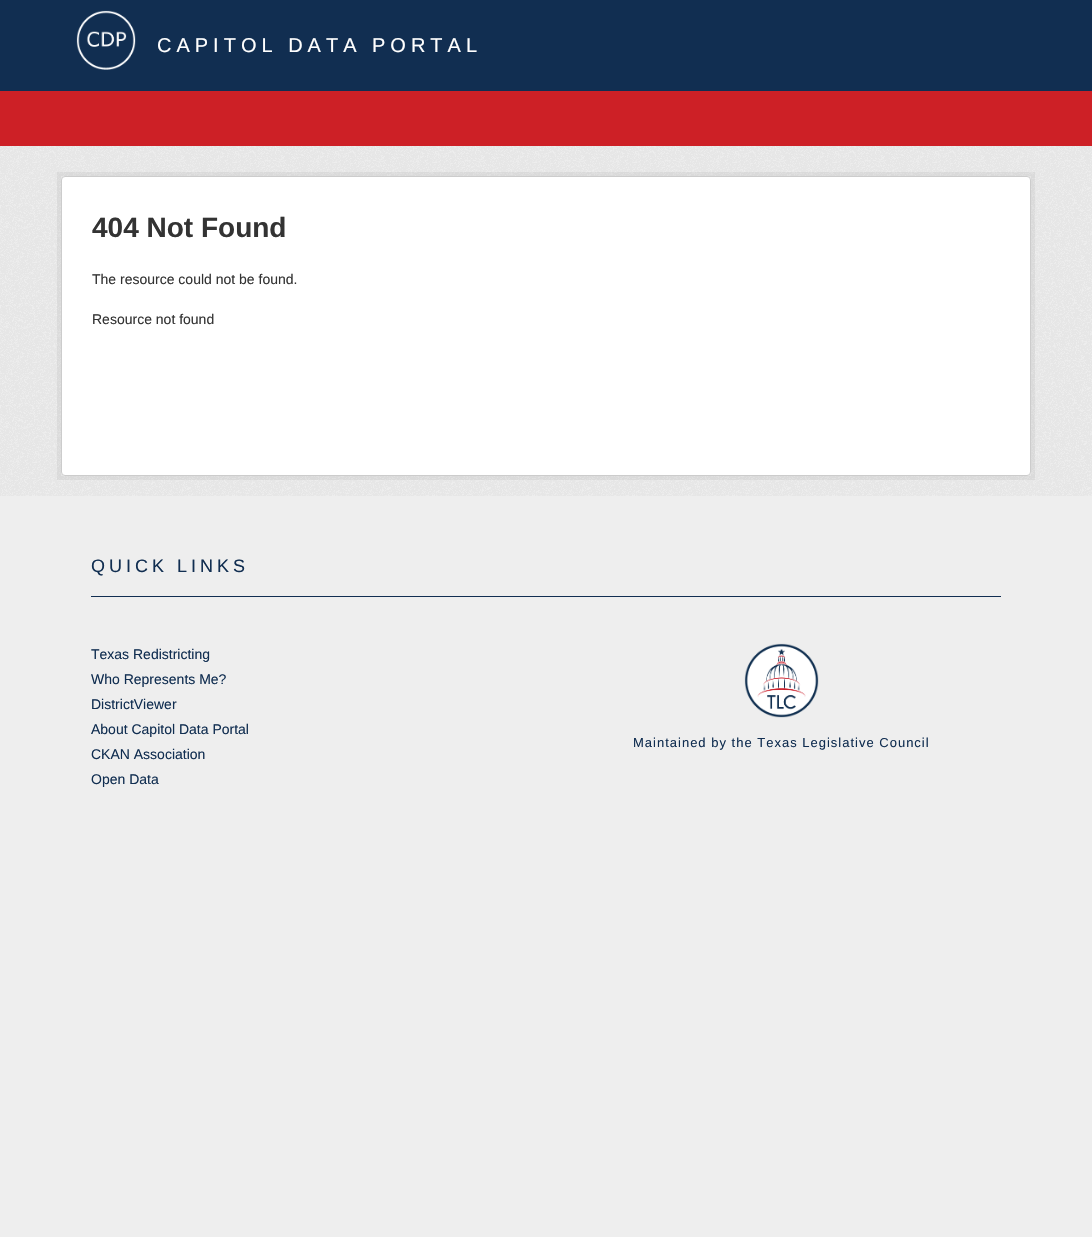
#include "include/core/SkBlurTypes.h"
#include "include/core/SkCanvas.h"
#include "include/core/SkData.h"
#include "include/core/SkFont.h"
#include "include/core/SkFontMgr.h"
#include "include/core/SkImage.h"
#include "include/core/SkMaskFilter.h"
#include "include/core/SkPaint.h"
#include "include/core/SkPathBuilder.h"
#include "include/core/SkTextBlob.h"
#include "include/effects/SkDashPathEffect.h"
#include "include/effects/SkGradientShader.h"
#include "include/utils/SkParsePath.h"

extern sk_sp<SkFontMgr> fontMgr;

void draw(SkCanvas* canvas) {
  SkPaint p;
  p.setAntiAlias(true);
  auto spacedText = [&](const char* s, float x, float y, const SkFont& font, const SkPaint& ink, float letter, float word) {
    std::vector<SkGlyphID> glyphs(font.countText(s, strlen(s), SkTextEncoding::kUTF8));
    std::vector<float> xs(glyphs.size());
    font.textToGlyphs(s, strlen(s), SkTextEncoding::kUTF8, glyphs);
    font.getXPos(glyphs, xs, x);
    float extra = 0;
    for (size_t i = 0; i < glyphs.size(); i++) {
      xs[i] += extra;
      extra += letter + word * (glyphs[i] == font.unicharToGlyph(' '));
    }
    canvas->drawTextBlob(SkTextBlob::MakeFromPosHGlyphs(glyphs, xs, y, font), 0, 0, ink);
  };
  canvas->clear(SkColorSetRGB(238, 238, 238));
  p.setColor(SkColorSetRGB(17, 46, 81));
  canvas->drawRect(SkRect::MakeLTRB(0, 0, 1092, 91), p);
  canvas->drawImageRect(SkImages::DeferredFromEncodedData(SkData::MakeFromFileName("images/1.png")), SkRect::MakeLTRB(76, 10, 136, 70), SkSamplingOptions());
  p.setColor(SkColorSetRGB(205, 32, 38));
  canvas->drawRect(SkRect::MakeLTRB(0, 91, 1092, 146), p);
  canvas->drawImageRect(SkImages::DeferredFromEncodedData(SkData::MakeFromFileName("images/2.png")), SkRect::MakeLTRB(0, 146, 1092, 496), SkSamplingOptions());
  p.setStyle(SkPaint::kStroke_Style);
  p.setStrokeWidth(4);
  p.setColor(SkColorSetARGB(13, 0, 0, 0));
  canvas->drawRect(SkRect::MakeLTRB(59, 174, 1033, 478), p);
  p.setStyle(SkPaint::kFill_Style);
  p.setColor(SK_ColorWHITE);
  canvas->drawRoundRect(SkRect::MakeLTRB(61.5f, 176.5f, 1030.5f, 475.5f), 3.5f, 3.5f, p);
  p.setStyle(SkPaint::kStroke_Style);
  p.setStrokeWidth(1);
  p.setColor(SkColorSetRGB(204, 204, 204));
  canvas->drawRoundRect(SkRect::MakeLTRB(61.5f, 176.5f, 1030.5f, 475.5f), 3.5f, 3.5f, p);
  p.setStyle(SkPaint::kFill_Style);
  p.setColor(SkColorSetRGB(17, 46, 81));
  canvas->drawRect(SkRect::MakeLTRB(91, 596, 1001, 597), p);
  canvas->drawImageRect(SkImages::DeferredFromEncodedData(SkData::MakeFromFileName("images/3.png")), SkRect::MakeLTRB(744, 643, 819, 718), SkSamplingOptions());
  SkFont font1(fontMgr->matchFamilyStyle("Liberation Sans", SkFontStyle::Normal()), 20);
  font1.setSubpixel(true);
  p.setColor(SK_ColorWHITE);
  spacedText("CAPITOL DATA PORTAL", 157, 52, font1, p, 5, 0);
  SkFont font2(fontMgr->matchFamilyStyle("Liberation Sans", SkFontStyle::Bold()), 28);
  font2.setSubpixel(true);
  p.setColor(SkColorSetRGB(51, 51, 51));
  canvas->drawString("404 Not Found", 92, 237, font2, p);
  SkFont font3(fontMgr->matchFamilyStyle("Liberation Sans", SkFontStyle::Normal()), 14);
  font3.setSubpixel(true);
  canvas->drawString("The resource could not be found.", 92, 284, font3, p);
  canvas->drawString("Resource not found", 92, 324, font3, p);
  SkFont font4(fontMgr->matchFamilyStyle("Liberation Sans", SkFontStyle::Normal()), 18);
  font4.setSubpixel(true);
  p.setColor(SkColorSetRGB(17, 46, 81));
  spacedText("QUICK LINKS", 91, 572, font4, p, 4, 0);
  canvas->drawString("Texas Redistricting", 91, 659, font3, p);
  canvas->drawString("Who Represents Me?", 91, 684, font3, p);
  canvas->drawString("DistrictViewer", 91, 709, font3, p);
  canvas->drawString("About Capitol Data Portal", 91, 734, font3, p);
  canvas->drawString("CKAN Association", 91, 759, font3, p);
  canvas->drawString("Open Data", 91, 784, font3, p);
  SkFont font5(fontMgr->matchFamilyStyle("Liberation Sans", SkFontStyle::Normal()), 13);
  font5.setSubpixel(true);
  spacedText("Maintained by the Texas Legislative Council", 633, 747, font5, p, 1, 0);
}
